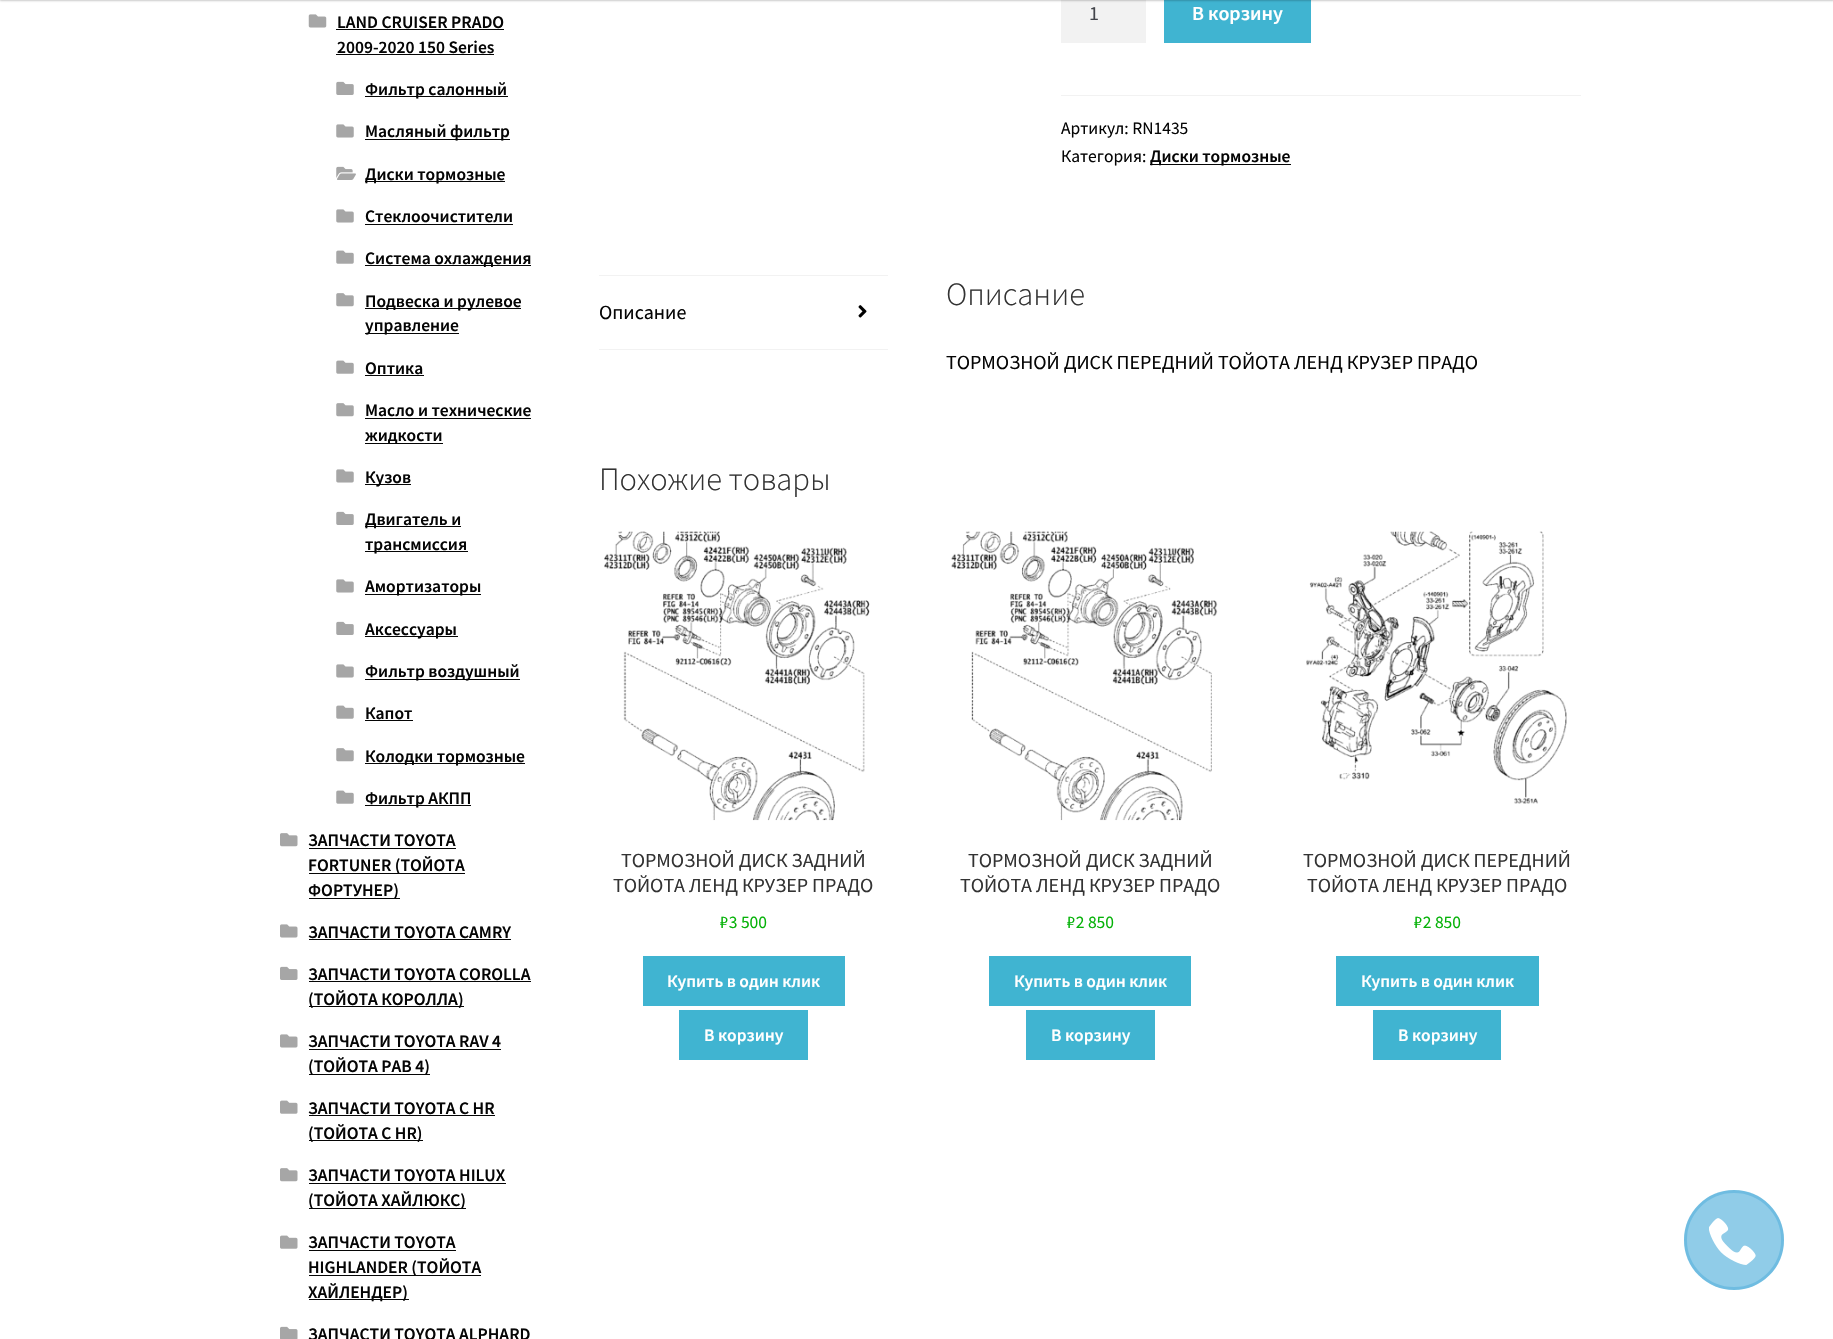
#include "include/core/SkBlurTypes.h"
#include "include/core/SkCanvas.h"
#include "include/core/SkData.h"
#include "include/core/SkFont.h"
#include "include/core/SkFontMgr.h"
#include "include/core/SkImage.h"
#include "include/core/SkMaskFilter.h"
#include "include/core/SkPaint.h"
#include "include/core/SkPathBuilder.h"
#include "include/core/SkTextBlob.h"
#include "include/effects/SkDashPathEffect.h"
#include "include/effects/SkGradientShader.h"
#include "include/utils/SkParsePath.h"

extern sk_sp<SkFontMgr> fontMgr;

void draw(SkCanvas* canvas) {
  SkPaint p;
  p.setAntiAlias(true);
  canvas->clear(SK_ColorWHITE);
  p.setColor(SkColorSetRGB(242, 242, 242));
  canvas->drawRect(SkRect::MakeLTRB(1061, 0, 1146, 43), p);
  p.setColor(SkColorSetRGB(64, 180, 209));
  canvas->drawRect(SkRect::MakeLTRB(1164, 0, 1311, 43), p);
  p.setColor(SkColorSetARGB(51, 0, 0, 0));
  p.setMaskFilter(SkMaskFilter::MakeBlur(kNormal_SkBlurStyle, 1));
  canvas->drawRect(SkRect::MakeLTRB(0, -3, 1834, 1), p);
  p.setMaskFilter(nullptr);
  canvas->drawImageRect(SkImages::DeferredFromEncodedData(SkData::MakeFromFileName("images/1.png")), SkRect::MakeLTRB(308, 14, 327, 28), SkSamplingOptions());
  p.setColor(SkColorSetRGB(5, 5, 5));
  canvas->drawRect(SkRect::MakeLTRB(336, 29, 504, 30), p);
  canvas->drawRect(SkRect::MakeLTRB(336, 54, 494, 55), p);
  canvas->drawImageRect(SkImages::DeferredFromEncodedData(SkData::MakeFromFileName("images/2.png")), SkRect::MakeLTRB(336, 81, 354, 95), SkSamplingOptions());
  canvas->drawRect(SkRect::MakeLTRB(365, 96, 508, 97), p);
  canvas->drawImageRect(SkImages::DeferredFromEncodedData(SkData::MakeFromFileName("images/3.png")), SkRect::MakeLTRB(336, 124, 354, 138), SkSamplingOptions());
  canvas->drawRect(SkRect::MakeLTRB(365, 139, 510, 140), p);
  canvas->drawImageRect(SkImages::DeferredFromEncodedData(SkData::MakeFromFileName("images/4.png")), SkRect::MakeLTRB(336, 166, 356, 180), SkSamplingOptions());
  canvas->drawRect(SkRect::MakeLTRB(365, 181, 505, 182), p);
  canvas->drawImageRect(SkImages::DeferredFromEncodedData(SkData::MakeFromFileName("images/3.png")), SkRect::MakeLTRB(336, 209, 354, 223), SkSamplingOptions());
  canvas->drawRect(SkRect::MakeLTRB(365, 224, 513, 225), p);
  canvas->drawImageRect(SkImages::DeferredFromEncodedData(SkData::MakeFromFileName("images/5.png")), SkRect::MakeLTRB(336, 250, 354, 264), SkSamplingOptions());
  canvas->drawRect(SkRect::MakeLTRB(365, 265, 531, 266), p);
  canvas->drawImageRect(SkImages::DeferredFromEncodedData(SkData::MakeFromFileName("images/6.png")), SkRect::MakeLTRB(336, 293, 354, 307), SkSamplingOptions());
  canvas->drawRect(SkRect::MakeLTRB(365, 308, 521, 309), p);
  canvas->drawRect(SkRect::MakeLTRB(365, 333, 459, 334), p);
  canvas->drawImageRect(SkImages::DeferredFromEncodedData(SkData::MakeFromFileName("images/5.png")), SkRect::MakeLTRB(336, 360, 354, 374), SkSamplingOptions());
  canvas->drawRect(SkRect::MakeLTRB(365, 375, 424, 376), p);
  canvas->drawImageRect(SkImages::DeferredFromEncodedData(SkData::MakeFromFileName("images/6.png")), SkRect::MakeLTRB(336, 403, 354, 417), SkSamplingOptions());
  canvas->drawRect(SkRect::MakeLTRB(365, 418, 531, 419), p);
  canvas->drawRect(SkRect::MakeLTRB(365, 443, 443, 444), p);
  canvas->drawImageRect(SkImages::DeferredFromEncodedData(SkData::MakeFromFileName("images/3.png")), SkRect::MakeLTRB(336, 469, 354, 483), SkSamplingOptions());
  canvas->drawRect(SkRect::MakeLTRB(365, 484, 411, 485), p);
  canvas->drawImageRect(SkImages::DeferredFromEncodedData(SkData::MakeFromFileName("images/2.png")), SkRect::MakeLTRB(336, 511, 354, 525), SkSamplingOptions());
  canvas->drawRect(SkRect::MakeLTRB(365, 526, 461, 527), p);
  canvas->drawRect(SkRect::MakeLTRB(365, 551, 468, 552), p);
  canvas->drawImageRect(SkImages::DeferredFromEncodedData(SkData::MakeFromFileName("images/3.png")), SkRect::MakeLTRB(336, 579, 354, 593), SkSamplingOptions());
  canvas->drawRect(SkRect::MakeLTRB(365, 594, 481, 595), p);
  canvas->drawImageRect(SkImages::DeferredFromEncodedData(SkData::MakeFromFileName("images/2.png")), SkRect::MakeLTRB(336, 621, 354, 635), SkSamplingOptions());
  canvas->drawRect(SkRect::MakeLTRB(365, 636, 458, 637), p);
  canvas->drawImageRect(SkImages::DeferredFromEncodedData(SkData::MakeFromFileName("images/3.png")), SkRect::MakeLTRB(336, 664, 354, 678), SkSamplingOptions());
  canvas->drawRect(SkRect::MakeLTRB(365, 679, 520, 680), p);
  canvas->drawImageRect(SkImages::DeferredFromEncodedData(SkData::MakeFromFileName("images/5.png")), SkRect::MakeLTRB(336, 705, 354, 719), SkSamplingOptions());
  canvas->drawRect(SkRect::MakeLTRB(365, 720, 413, 721), p);
  canvas->drawImageRect(SkImages::DeferredFromEncodedData(SkData::MakeFromFileName("images/6.png")), SkRect::MakeLTRB(336, 748, 354, 762), SkSamplingOptions());
  canvas->drawRect(SkRect::MakeLTRB(365, 763, 525, 764), p);
  canvas->drawImageRect(SkImages::DeferredFromEncodedData(SkData::MakeFromFileName("images/5.png")), SkRect::MakeLTRB(336, 790, 354, 804), SkSamplingOptions());
  canvas->drawRect(SkRect::MakeLTRB(365, 805, 471, 806), p);
  canvas->drawImageRect(SkImages::DeferredFromEncodedData(SkData::MakeFromFileName("images/7.png")), SkRect::MakeLTRB(280, 833, 298, 847), SkSamplingOptions());
  canvas->drawRect(SkRect::MakeLTRB(309, 848, 456, 849), p);
  canvas->drawRect(SkRect::MakeLTRB(309, 873, 465, 874), p);
  canvas->drawRect(SkRect::MakeLTRB(309, 898, 400, 899), p);
  canvas->drawImageRect(SkImages::DeferredFromEncodedData(SkData::MakeFromFileName("images/8.png")), SkRect::MakeLTRB(280, 924, 298, 938), SkSamplingOptions());
  canvas->drawRect(SkRect::MakeLTRB(309, 939, 511, 940), p);
  canvas->drawImageRect(SkImages::DeferredFromEncodedData(SkData::MakeFromFileName("images/9.png")), SkRect::MakeLTRB(280, 966, 298, 980), SkSamplingOptions());
  canvas->drawRect(SkRect::MakeLTRB(309, 981, 531, 982), p);
  canvas->drawRect(SkRect::MakeLTRB(309, 1006, 464, 1007), p);
  canvas->drawImageRect(SkImages::DeferredFromEncodedData(SkData::MakeFromFileName("images/8.png")), SkRect::MakeLTRB(280, 1034, 298, 1048), SkSamplingOptions());
  canvas->drawRect(SkRect::MakeLTRB(309, 1049, 501, 1050), p);
  canvas->drawRect(SkRect::MakeLTRB(309, 1074, 430, 1075), p);
  canvas->drawImageRect(SkImages::DeferredFromEncodedData(SkData::MakeFromFileName("images/10.png")), SkRect::MakeLTRB(280, 1100, 298, 1114), SkSamplingOptions());
  canvas->drawRect(SkRect::MakeLTRB(309, 1115, 495, 1116), p);
  canvas->drawRect(SkRect::MakeLTRB(309, 1140, 423, 1141), p);
  canvas->drawImageRect(SkImages::DeferredFromEncodedData(SkData::MakeFromFileName("images/7.png")), SkRect::MakeLTRB(280, 1168, 298, 1182), SkSamplingOptions());
  canvas->drawRect(SkRect::MakeLTRB(309, 1183, 506, 1184), p);
  canvas->drawRect(SkRect::MakeLTRB(309, 1208, 466, 1209), p);
  canvas->drawImageRect(SkImages::DeferredFromEncodedData(SkData::MakeFromFileName("images/10.png")), SkRect::MakeLTRB(280, 1235, 298, 1249), SkSamplingOptions());
  canvas->drawRect(SkRect::MakeLTRB(309, 1250, 456, 1251), p);
  canvas->drawRect(SkRect::MakeLTRB(309, 1275, 481, 1276), p);
  canvas->drawRect(SkRect::MakeLTRB(309, 1299, 409, 1300), p);
  canvas->drawImageRect(SkImages::DeferredFromEncodedData(SkData::MakeFromFileName("images/11.png")), SkRect::MakeLTRB(280, 1326, 298, 1339), SkSamplingOptions());
  p.setColor(SkColorSetRGB(242, 242, 242));
  canvas->drawRect(SkRect::MakeLTRB(1061, 95, 1581, 96), p);
  p.setColor(SkColorSetRGB(5, 5, 5));
  canvas->drawRect(SkRect::MakeLTRB(1150, 164, 1291, 165), p);
  p.setColor(SkColorSetRGB(242, 242, 242));
  canvas->drawRect(SkRect::MakeLTRB(599, 275, 888, 276), p);
  canvas->drawRect(SkRect::MakeLTRB(599, 349, 888, 350), p);
  canvas->drawImageRect(SkImages::DeferredFromEncodedData(SkData::MakeFromFileName("images/12.png")), SkRect::MakeLTRB(858, 305, 867, 318), SkSamplingOptions());
  canvas->drawImageRect(SkImages::DeferredFromEncodedData(SkData::MakeFromFileName("images/13.png")), SkRect::MakeLTRB(604, 531, 870, 821), SkSamplingOptions());
  p.setColor(SkColorSetRGB(64, 180, 209));
  canvas->drawRect(SkRect::MakeLTRB(643, 956, 845, 1006), p);
  canvas->drawRect(SkRect::MakeLTRB(679, 1010, 808, 1060), p);
  canvas->drawImageRect(SkImages::DeferredFromEncodedData(SkData::MakeFromFileName("images/14.png")), SkRect::MakeLTRB(951, 531, 1218, 821), SkSamplingOptions());
  canvas->drawRect(SkRect::MakeLTRB(989, 956, 1191, 1006), p);
  canvas->drawRect(SkRect::MakeLTRB(1026, 1010, 1155, 1060), p);
  canvas->drawImageRect(SkImages::DeferredFromEncodedData(SkData::MakeFromFileName("images/15.png")), SkRect::MakeLTRB(1306, 531, 1567, 804), SkSamplingOptions());
  canvas->drawRect(SkRect::MakeLTRB(1336, 956, 1539, 1006), p);
  canvas->drawRect(SkRect::MakeLTRB(1373, 1010, 1501, 1060), p);
  p.setColor(SkColorSetRGB(144, 204, 232));
  canvas->drawCircle(1734, 1240, 50, p);
  p.setStyle(SkPaint::kStroke_Style);
  p.setStrokeWidth(3);
  p.setColor(SkColorSetARGB(77, 32, 152, 209));
  canvas->drawCircle(1734, 1240, 48.5f, p);
  canvas->drawImageRect(SkImages::DeferredFromEncodedData(SkData::MakeFromFileName("images/16.png")), SkRect::MakeLTRB(1709, 1218, 1756, 1265), SkSamplingOptions());
  SkFont font1(fontMgr->matchFamilyStyle("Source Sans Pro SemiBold", SkFontStyle(600, SkFontStyle::kNormal_Width, SkFontStyle::kUpright_Slant)), 17.5f);
  font1.setSubpixel(true);
  p.setStyle(SkPaint::kFill_Style);
  p.setColor(SkColorSetRGB(5, 5, 5));
  canvas->drawString("LAND CRUISER PRADO", 337, 28, font1, p);
  canvas->drawString("2009-2020 150 Series", 337, 53, font1, p);
  canvas->drawString("Фильтр салонный", 365, 95, font1, p);
  canvas->drawString("Масляный фильтр", 365, 137, font1, p);
  canvas->drawString("Диски тормозные", 365, 180, font1, p);
  canvas->drawString("Стеклоочистители", 365, 222, font1, p);
  canvas->drawString("Система охлаждения", 365, 264, font1, p);
  canvas->drawString("Подвеска и рулевое", 365, 307, font1, p);
  canvas->drawString("управление", 365, 331, font1, p);
  canvas->drawString("Оптика", 365, 374, font1, p);
  canvas->drawString("Масло и технические", 365, 416, font1, p);
  canvas->drawString("жидкости", 365, 441, font1, p);
  canvas->drawString("Кузов", 365, 483, font1, p);
  canvas->drawString("Двигатель и", 365, 525, font1, p);
  canvas->drawString("трансмиссия", 365, 550, font1, p);
  canvas->drawString("Амортизаторы", 365, 592, font1, p);
  canvas->drawString("Аксессуары", 365, 635, font1, p);
  canvas->drawString("Фильтр воздушный", 365, 677, font1, p);
  canvas->drawString("Капот", 365, 719, font1, p);
  canvas->drawString("Колодки тормозные", 365, 762, font1, p);
  canvas->drawString("Фильтр АКПП", 365, 804, font1, p);
  canvas->drawString("ЗАПЧАСТИ TOYOTA", 308, 846, font1, p);
  canvas->drawString("FORTUNER (ТОЙОТА", 308, 871, font1, p);
  canvas->drawString("ФОРТУНЕР)", 308, 896, font1, p);
  canvas->drawString("ЗАПЧАСТИ TOYOTA CAMRY", 308, 938, font1, p);
  canvas->drawString("ЗАПЧАСТИ TOYOTA COROLLA", 308, 980, font1, p);
  canvas->drawString("(ТОЙОТА КОРОЛЛА)", 308, 1005, font1, p);
  canvas->drawString("ЗАПЧАСТИ TOYOTA RAV 4", 308, 1047, font1, p);
  canvas->drawString("(ТОЙОТА РАВ 4)", 308, 1072, font1, p);
  canvas->drawString("ЗАПЧАСТИ TOYOTA C HR", 308, 1114, font1, p);
  canvas->drawString("(ТОЙОТА C HR)", 308, 1139, font1, p);
  canvas->drawString("ЗАПЧАСТИ TOYOTA HILUX", 308, 1181, font1, p);
  canvas->drawString("(ТОЙОТА ХАЙЛЮКС)", 308, 1206, font1, p);
  canvas->drawString("ЗАПЧАСТИ TOYOTA", 308, 1248, font1, p);
  canvas->drawString("HIGHLANDER (ТОЙОТА", 308, 1273, font1, p);
  canvas->drawString("ХАЙЛЕНДЕР)", 308, 1298, font1, p);
  canvas->drawString("ЗАПЧАСТИ TOYOTA ALPHARD", 308, 1340, font1, p);
  SkFont font2(fontMgr->matchFamilyStyle("Source Sans Pro", SkFontStyle::Normal()), 20);
  font2.setSubpixel(true);
  p.setColor(SkColorSetRGB(67, 69, 75));
  canvas->drawString("1", 1089, 20, font2, p);
  SkFont font3(fontMgr->matchFamilyStyle("Source Sans Pro SemiBold", SkFontStyle(600, SkFontStyle::kNormal_Width, SkFontStyle::kUpright_Slant)), 20);
  font3.setSubpixel(true);
  p.setColor(SK_ColorWHITE);
  canvas->drawString("В корзину", 1192, 20, font3, p);
  SkFont font4(fontMgr->matchFamilyStyle("Source Sans Pro", SkFontStyle::Normal()), 17.5f);
  font4.setSubpixel(true);
  p.setColor(SkColorSetRGB(5, 5, 5));
  canvas->drawString("Артикул: RN1435", 1061, 134, font4, p);
  canvas->drawString("Категория:", 1061, 162, font4, p);
  canvas->drawString("Диски тормозные", 1150, 162, font1, p);
  canvas->drawString("Описание", 599, 319, font2, p);
  SkFont font5(fontMgr->matchFamilyStyle("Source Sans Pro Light", SkFontStyle(300, SkFontStyle::kNormal_Width, SkFontStyle::kUpright_Slant)), 32.5f);
  font5.setSubpixel(true);
  p.setColor(SkColorSetRGB(51, 51, 51));
  canvas->drawString("Описание", 946, 305, font5, p);
  p.setColor(SkColorSetRGB(5, 5, 5));
  canvas->drawString("ТОРМОЗНОЙ ДИСК ПЕРЕДНИЙ ТОЙОТА ЛЕНД КРУЗЕР ПРАДО", 946, 369, font2, p);
  p.setColor(SkColorSetRGB(51, 51, 51));
  canvas->drawString("Похожие товары", 599, 490, font5, p);
  canvas->drawString("ТОРМОЗНОЙ ДИСК ЗАДНИЙ", 621, 867, font2, p);
  canvas->drawString("ТОЙОТА ЛЕНД КРУЗЕР ПРАДО", 613, 892, font2, p);
  p.setColor(SkColorSetRGB(5, 178, 8));
  canvas->drawString("₽3 500", 720, 928, font4, p);
  p.setColor(SK_ColorWHITE);
  canvas->drawString("Купить в один клик", 667, 987, font1, p);
  canvas->drawString("В корзину", 704, 1041, font1, p);
  p.setColor(SkColorSetRGB(51, 51, 51));
  canvas->drawString("ТОРМОЗНОЙ ДИСК ЗАДНИЙ", 968, 867, font2, p);
  canvas->drawString("ТОЙОТА ЛЕНД КРУЗЕР ПРАДО", 960, 892, font2, p);
  p.setColor(SkColorSetRGB(5, 178, 8));
  canvas->drawString("₽2 850", 1067, 928, font4, p);
  p.setColor(SK_ColorWHITE);
  canvas->drawString("Купить в один клик", 1014, 987, font1, p);
  canvas->drawString("В корзину", 1051, 1041, font1, p);
  p.setColor(SkColorSetRGB(51, 51, 51));
  canvas->drawString("ТОРМОЗНОЙ ДИСК ПЕРЕДНИЙ", 1303, 867, font2, p);
  canvas->drawString("ТОЙОТА ЛЕНД КРУЗЕР ПРАДО", 1307, 892, font2, p);
  p.setColor(SkColorSetRGB(5, 178, 8));
  canvas->drawString("₽2 850", 1414, 928, font4, p);
  p.setColor(SK_ColorWHITE);
  canvas->drawString("Купить в один клик", 1361, 987, font1, p);
  canvas->drawString("В корзину", 1398, 1041, font1, p);
}
